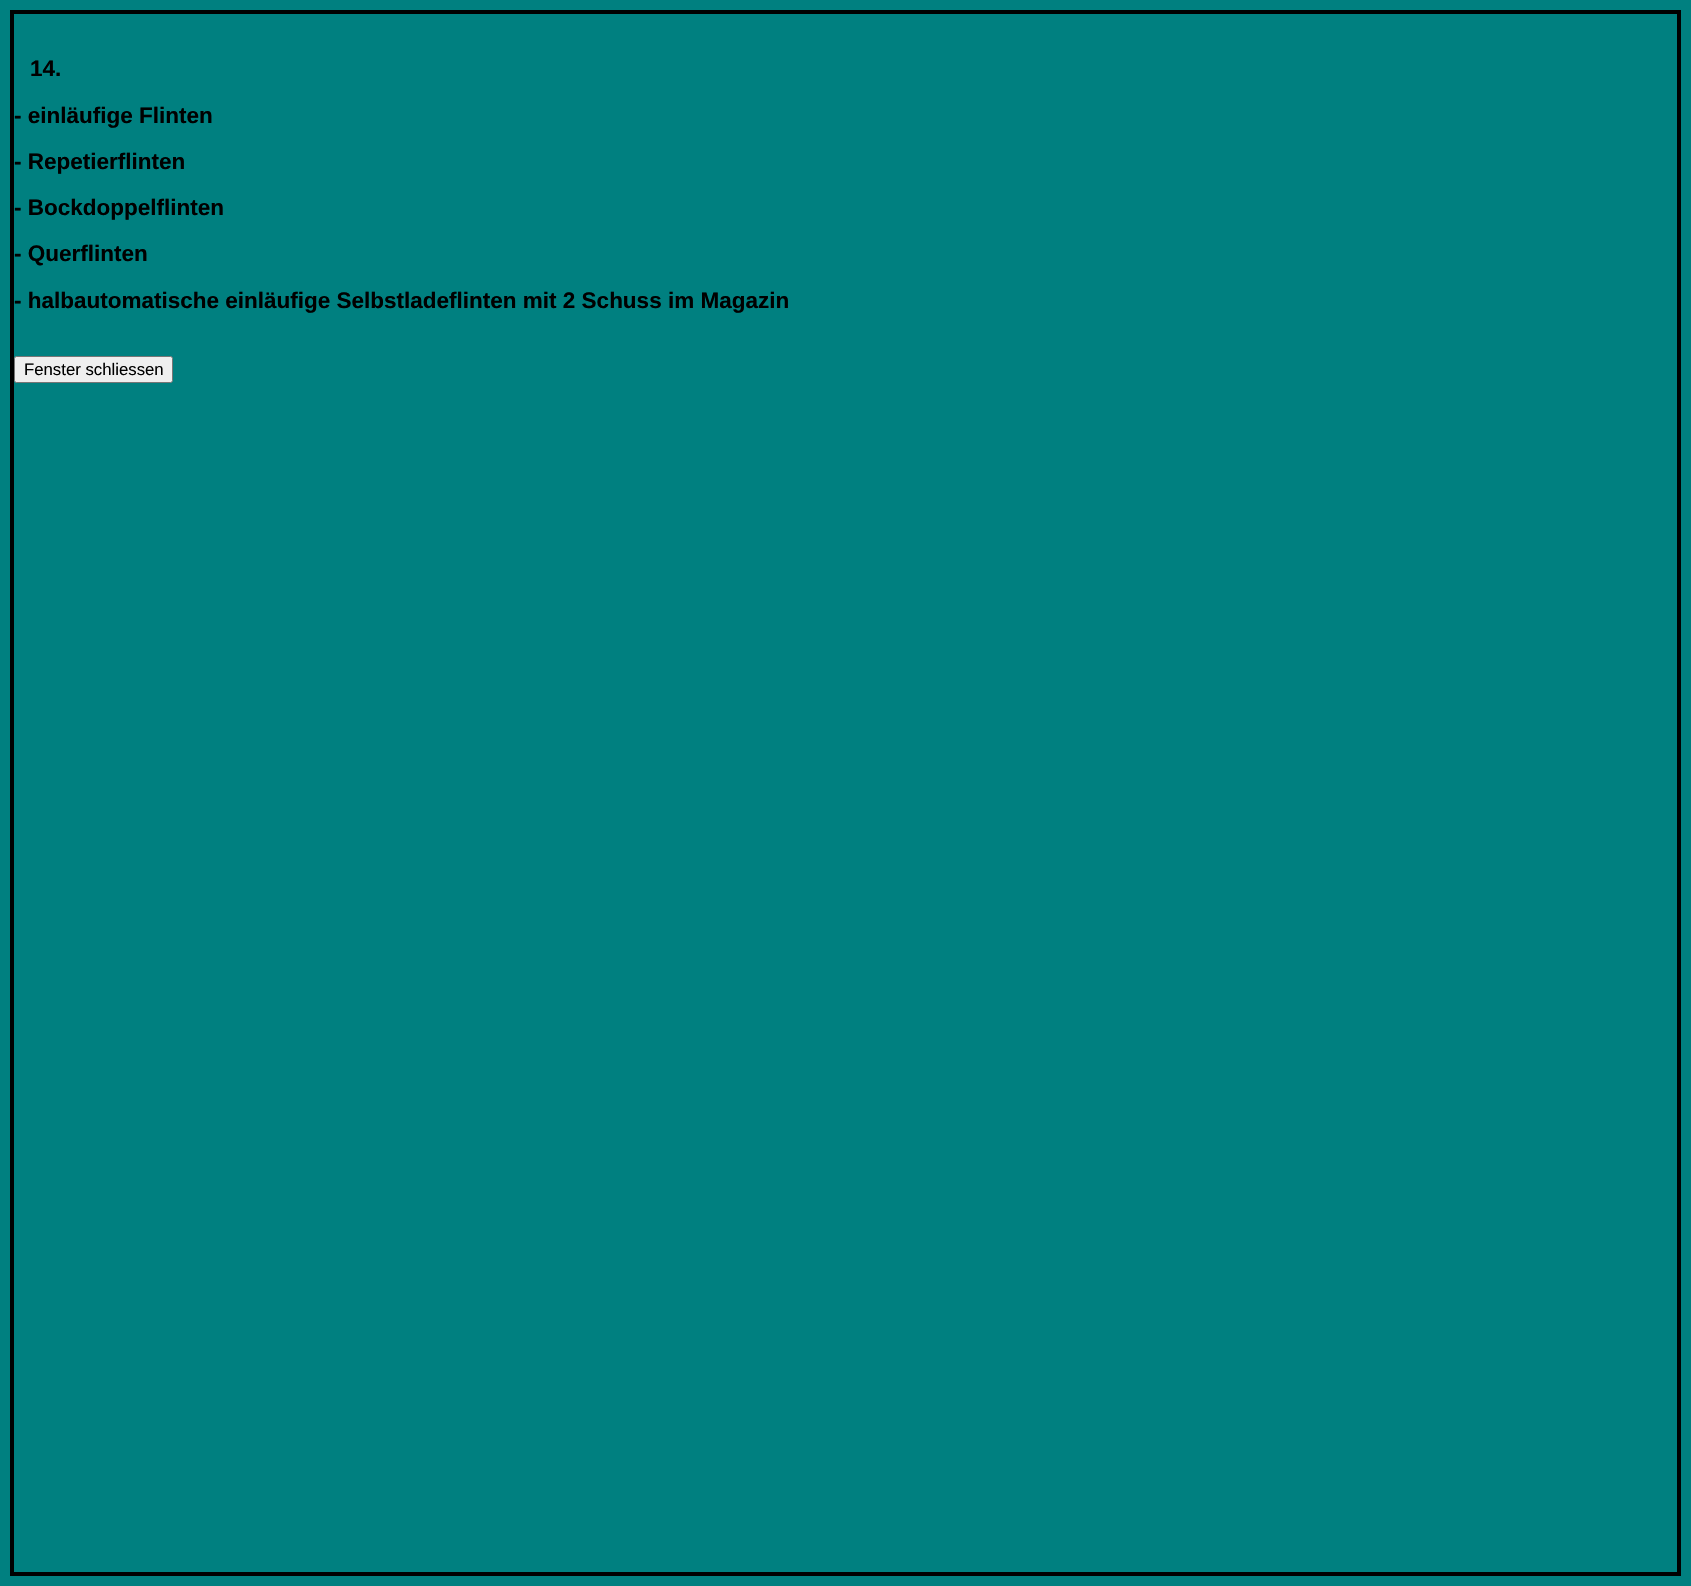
#include "include/core/SkBlurTypes.h"
#include "include/core/SkCanvas.h"
#include "include/core/SkData.h"
#include "include/core/SkFont.h"
#include "include/core/SkFontMgr.h"
#include "include/core/SkImage.h"
#include "include/core/SkMaskFilter.h"
#include "include/core/SkPaint.h"
#include "include/core/SkPathBuilder.h"
#include "include/core/SkTextBlob.h"
#include "include/effects/SkDashPathEffect.h"
#include "include/effects/SkGradientShader.h"
#include "include/utils/SkParsePath.h"

extern sk_sp<SkFontMgr> fontMgr;

void draw(SkCanvas* canvas) {
  SkPaint p;
  p.setAntiAlias(true);
  canvas->clear(SkColorSetRGB(0, 128, 128));
  p.setStyle(SkPaint::kStroke_Style);
  p.setStrokeWidth(4);
  p.setColor(SK_ColorBLACK);
  canvas->drawRect(SkRect::MakeLTRB(12, 12, 1679, 1574), p);
  p.setStyle(SkPaint::kFill_Style);
  p.setColor(SkColorSetRGB(239, 239, 239));
  canvas->drawRoundRect(SkRect::MakeLTRB(14.5f, 356.5f, 172.5f, 382.5f), 2, 2, p);
  p.setStyle(SkPaint::kStroke_Style);
  p.setStrokeWidth(1);
  p.setColor(SkColorSetRGB(118, 118, 118));
  canvas->drawRoundRect(SkRect::MakeLTRB(14.5f, 356.5f, 172.5f, 382.5f), 2, 2, p);
  SkFont font1(fontMgr->matchFamilyStyle("Liberation Sans", SkFontStyle::Bold()), 22.5f);
  font1.setSubpixel(true);
  p.setStyle(SkPaint::kFill_Style);
  p.setColor(SK_ColorBLACK);
  canvas->drawString("14.", 30, 76, font1, p);
  canvas->drawString("- einläufige Flinten", 14, 123, font1, p);
  canvas->drawString("- Repetierflinten", 14, 169, font1, p);
  canvas->drawString("- Bockdoppelflinten", 14, 215, font1, p);
  canvas->drawString("- Querflinten", 14, 261, font1, p);
  canvas->drawString("- halbautomatische einläufige Selbstladeflinten mit 2 Schuss im Magazin", 14, 308, font1, p);
  SkFont font2(fontMgr->matchFamilyStyle("Liberation Sans", SkFontStyle::Normal()), 16.75f);
  font2.setSubpixel(true);
  canvas->drawString("Fenster schliessen", 24, 375, font2, p);
}
